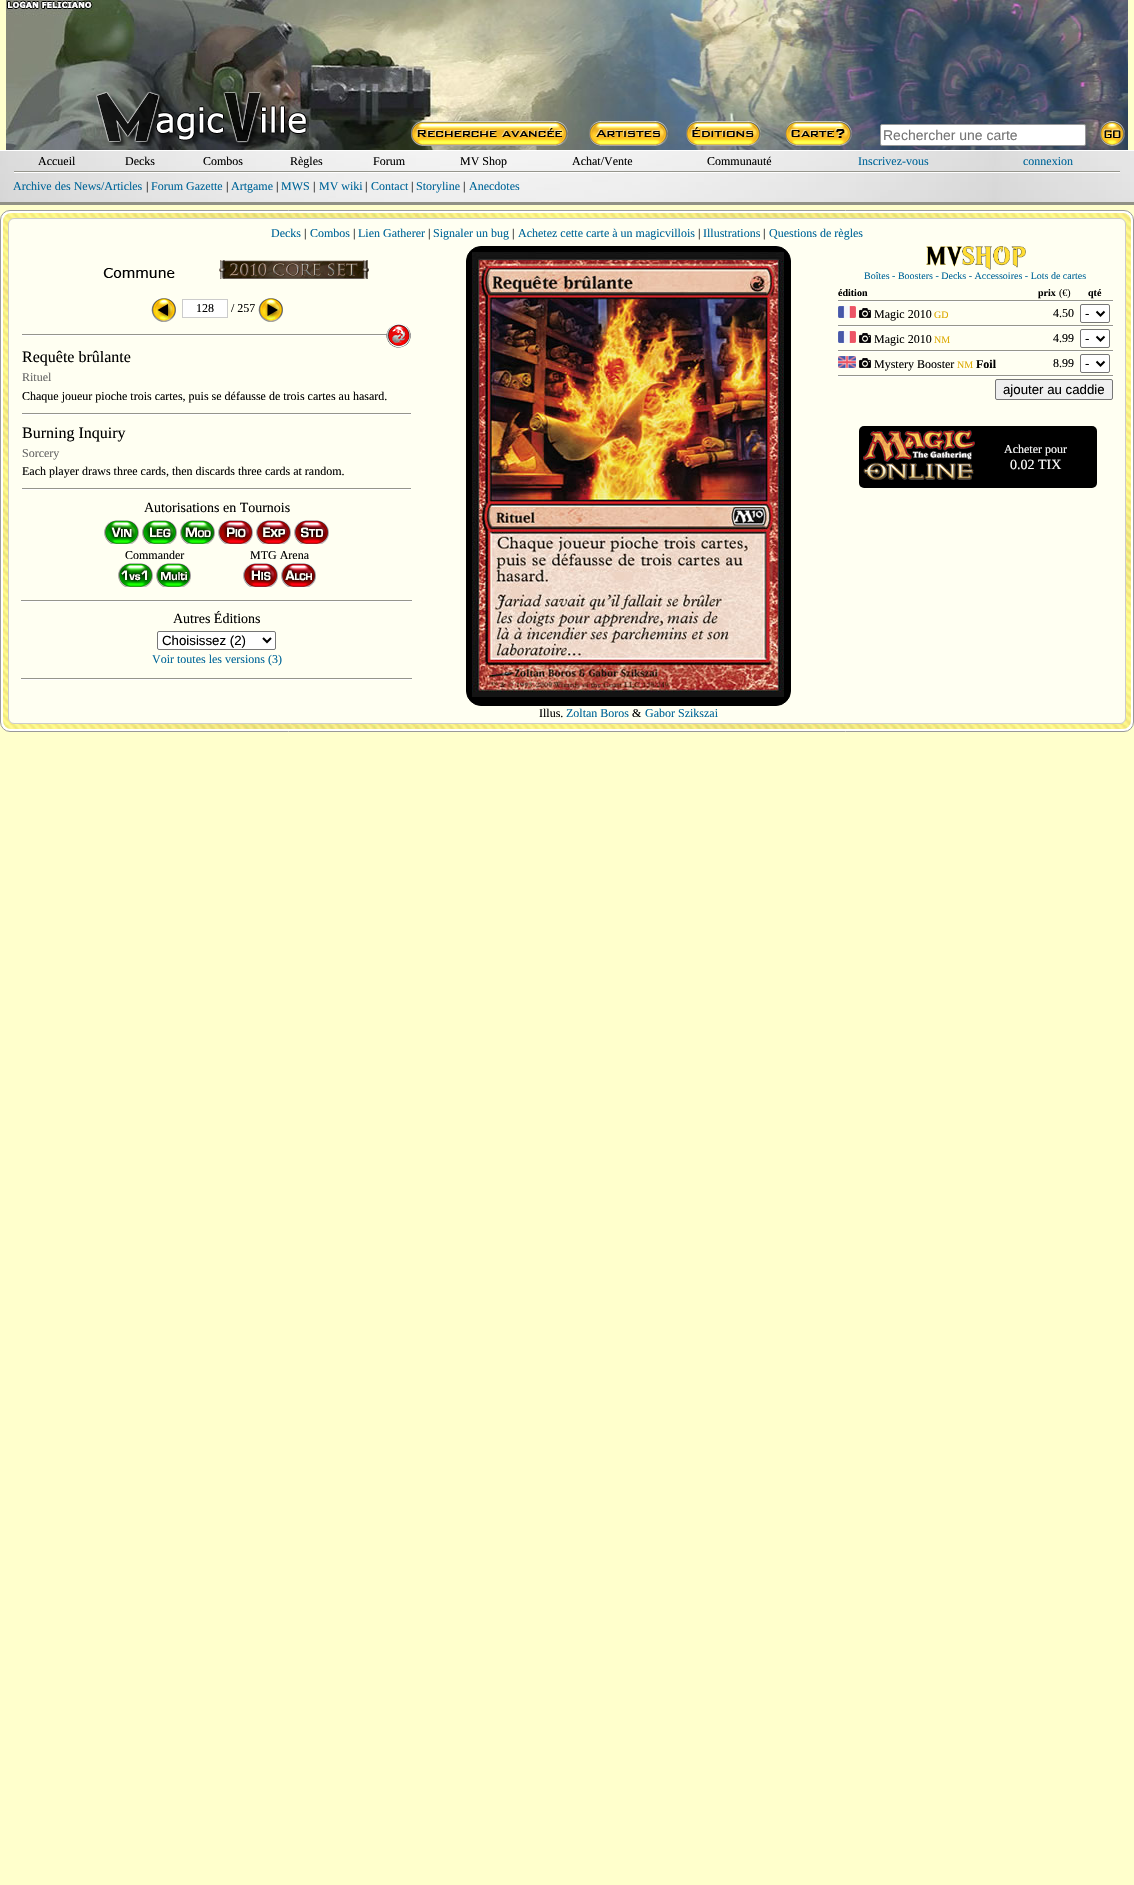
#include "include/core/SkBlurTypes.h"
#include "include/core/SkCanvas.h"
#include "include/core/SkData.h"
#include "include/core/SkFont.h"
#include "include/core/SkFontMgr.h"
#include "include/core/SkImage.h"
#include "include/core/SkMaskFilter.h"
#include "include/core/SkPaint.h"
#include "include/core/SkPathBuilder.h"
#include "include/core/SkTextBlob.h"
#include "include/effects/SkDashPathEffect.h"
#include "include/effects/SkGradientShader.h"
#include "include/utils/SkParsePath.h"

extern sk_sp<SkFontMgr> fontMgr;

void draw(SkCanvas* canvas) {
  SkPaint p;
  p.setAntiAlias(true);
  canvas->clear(SkColorSetRGB(255, 255, 204));
  canvas->drawImageRect(SkImages::DeferredFromEncodedData(SkData::MakeFromFileName("images/1.png")), SkRect::MakeLTRB(6, 0, 1128, 150), SkSamplingOptions());
  canvas->drawImageRect(SkImages::DeferredFromEncodedData(SkData::MakeFromFileName("images/2.png")), SkRect::MakeLTRB(96, 92, 309, 146), SkSamplingOptions());
  canvas->drawImageRect(SkImages::DeferredFromEncodedData(SkData::MakeFromFileName("images/3.png")), SkRect::MakeLTRB(411, 121, 568, 146), SkSamplingOptions());
  canvas->drawImageRect(SkImages::DeferredFromEncodedData(SkData::MakeFromFileName("images/4.png")), SkRect::MakeLTRB(589, 121, 668, 146), SkSamplingOptions());
  canvas->drawImageRect(SkImages::DeferredFromEncodedData(SkData::MakeFromFileName("images/5.png")), SkRect::MakeLTRB(686, 121, 761, 146), SkSamplingOptions());
  canvas->drawImageRect(SkImages::DeferredFromEncodedData(SkData::MakeFromFileName("images/6.png")), SkRect::MakeLTRB(785, 121, 852, 146), SkSamplingOptions());
  p.setColor(SK_ColorWHITE);
  canvas->drawRoundRect(SkRect::MakeLTRB(880.5f, 124.5f, 1085.5f, 145.5f), 1.5f, 1.5f, p);
  p.setStyle(SkPaint::kStroke_Style);
  p.setStrokeWidth(1);
  p.setColor(SkColorSetRGB(153, 153, 153));
  canvas->drawRoundRect(SkRect::MakeLTRB(880.5f, 124.5f, 1085.5f, 145.5f), 1.5f, 1.5f, p);
  canvas->drawImageRect(SkImages::DeferredFromEncodedData(SkData::MakeFromFileName("images/7.png")), SkRect::MakeLTRB(1100, 121, 1125, 146), SkSamplingOptions());
  canvas->drawImageRect(SkImages::DeferredFromEncodedData(SkData::MakeFromFileName("images/8.png")), SkRect::MakeLTRB(0, 151, 1134, 202), SkSamplingOptions());
  p.setStyle(SkPaint::kFill_Style);
  p.setColor(SK_ColorWHITE);
  canvas->drawRect(SkRect::MakeLTRB(0, 150, 1134, 151), p);
  p.setColor(SkColorSetRGB(145, 145, 133));
  canvas->drawRect(SkRect::MakeLTRB(0, 202, 1134, 205), p);
  canvas->drawImageRect(SkImages::DeferredFromEncodedData(SkData::MakeFromFileName("images/9.png")), SkRect::MakeLTRB(14, 171, 1120, 173), SkSamplingOptions());
  p.setColor(SK_ColorWHITE);
  canvas->drawRoundRect(SkRect::MakeLTRB(0.5f, 210.5f, 1133.5f, 731.5f), 9.5f, 9.5f, p);
  p.setStyle(SkPaint::kStroke_Style);
  p.setColor(SkColorSetRGB(153, 153, 153));
  canvas->drawRoundRect(SkRect::MakeLTRB(0.5f, 210.5f, 1133.5f, 731.5f), 9.5f, 9.5f, p);
  canvas->drawImageRect(SkImages::DeferredFromEncodedData(SkData::MakeFromFileName("images/10.png")), SkRect::MakeLTRB(3, 213, 1131, 729), SkSamplingOptions());
  p.setStyle(SkPaint::kFill_Style);
  p.setColor(SkColorSetRGB(255, 255, 242));
  canvas->drawRoundRect(SkRect::MakeLTRB(8.5f, 218.5f, 1125.5f, 723.5f), 5.5f, 5.5f, p);
  p.setStyle(SkPaint::kStroke_Style);
  p.setColor(SkColorSetRGB(204, 204, 204));
  canvas->drawRoundRect(SkRect::MakeLTRB(8.5f, 218.5f, 1125.5f, 723.5f), 5.5f, 5.5f, p);
  canvas->drawImageRect(SkImages::DeferredFromEncodedData(SkData::MakeFromFileName("images/11.png")), SkRect::MakeLTRB(103, 268, 175, 278), SkSamplingOptions());
  canvas->drawImageRect(SkImages::DeferredFromEncodedData(SkData::MakeFromFileName("images/12.png")), SkRect::MakeLTRB(219, 260, 369, 279), SkSamplingOptions());
  canvas->drawImageRect(SkImages::DeferredFromEncodedData(SkData::MakeFromFileName("images/13.png")), SkRect::MakeLTRB(151, 297, 176, 322), SkSamplingOptions());
  p.setStyle(SkPaint::kFill_Style);
  p.setColor(SK_ColorWHITE);
  canvas->drawRect(SkRect::MakeLTRB(182.5f, 299.5f, 227.5f, 317.5f), p);
  p.setStyle(SkPaint::kStroke_Style);
  p.setColor(SkColorSetRGB(204, 204, 204));
  canvas->drawRect(SkRect::MakeLTRB(182.5f, 299.5f, 227.5f, 317.5f), p);
  canvas->drawImageRect(SkImages::DeferredFromEncodedData(SkData::MakeFromFileName("images/14.png")), SkRect::MakeLTRB(258, 297, 283, 322), SkSamplingOptions());
  canvas->drawImageRect(SkImages::DeferredFromEncodedData(SkData::MakeFromFileName("images/15.png")), SkRect::MakeLTRB(22, 334, 411, 336), SkSamplingOptions());
  canvas->drawImageRect(SkImages::DeferredFromEncodedData(SkData::MakeFromFileName("images/16.png")), SkRect::MakeLTRB(386, 323, 411, 348), SkSamplingOptions());
  canvas->drawImageRect(SkImages::DeferredFromEncodedData(SkData::MakeFromFileName("images/15.png")), SkRect::MakeLTRB(22, 413, 411, 415), SkSamplingOptions());
  canvas->drawImageRect(SkImages::DeferredFromEncodedData(SkData::MakeFromFileName("images/15.png")), SkRect::MakeLTRB(22, 488, 411, 490), SkSamplingOptions());
  canvas->drawImageRect(SkImages::DeferredFromEncodedData(SkData::MakeFromFileName("images/17.png")), SkRect::MakeLTRB(104, 520, 139, 544), SkSamplingOptions());
  canvas->drawImageRect(SkImages::DeferredFromEncodedData(SkData::MakeFromFileName("images/18.png")), SkRect::MakeLTRB(142, 520, 177, 544), SkSamplingOptions());
  canvas->drawImageRect(SkImages::DeferredFromEncodedData(SkData::MakeFromFileName("images/19.png")), SkRect::MakeLTRB(180, 520, 215, 544), SkSamplingOptions());
  canvas->drawImageRect(SkImages::DeferredFromEncodedData(SkData::MakeFromFileName("images/20.png")), SkRect::MakeLTRB(218, 520, 253, 544), SkSamplingOptions());
  canvas->drawImageRect(SkImages::DeferredFromEncodedData(SkData::MakeFromFileName("images/21.png")), SkRect::MakeLTRB(256, 520, 291, 544), SkSamplingOptions());
  canvas->drawImageRect(SkImages::DeferredFromEncodedData(SkData::MakeFromFileName("images/22.png")), SkRect::MakeLTRB(294, 520, 329, 544), SkSamplingOptions());
  canvas->drawImageRect(SkImages::DeferredFromEncodedData(SkData::MakeFromFileName("images/23.png")), SkRect::MakeLTRB(118, 563, 153, 587), SkSamplingOptions());
  canvas->drawImageRect(SkImages::DeferredFromEncodedData(SkData::MakeFromFileName("images/24.png")), SkRect::MakeLTRB(156, 563, 191, 587), SkSamplingOptions());
  canvas->drawImageRect(SkImages::DeferredFromEncodedData(SkData::MakeFromFileName("images/25.png")), SkRect::MakeLTRB(243, 563, 278, 587), SkSamplingOptions());
  canvas->drawImageRect(SkImages::DeferredFromEncodedData(SkData::MakeFromFileName("images/26.png")), SkRect::MakeLTRB(281, 563, 316, 587), SkSamplingOptions());
  canvas->drawImageRect(SkImages::DeferredFromEncodedData(SkData::MakeFromFileName("images/27.png")), SkRect::MakeLTRB(21, 600, 412, 602), SkSamplingOptions());
  p.setStyle(SkPaint::kFill_Style);
  p.setColor(SK_ColorWHITE);
  canvas->drawRoundRect(SkRect::MakeLTRB(157.5f, 631.5f, 275.5f, 649.5f), 1.5f, 1.5f, p);
  p.setStyle(SkPaint::kStroke_Style);
  p.setColor(SkColorSetRGB(118, 118, 118));
  canvas->drawRoundRect(SkRect::MakeLTRB(157.5f, 631.5f, 275.5f, 649.5f), 1.5f, 1.5f, p);
  p.setStrokeWidth(2);
  p.setColor(SK_ColorBLACK);
  canvas->drawPath(SkPathBuilder().moveTo(263, 638).lineTo(267, 642).lineTo(271, 638).detach(), p);
  canvas->drawImageRect(SkImages::DeferredFromEncodedData(SkData::MakeFromFileName("images/27.png")), SkRect::MakeLTRB(21, 678, 412, 680), SkSamplingOptions());
  canvas->drawImageRect(SkImages::DeferredFromEncodedData(SkData::MakeFromFileName("images/28.png")), SkRect::MakeLTRB(926, 246, 1026, 270), SkSamplingOptions());
  canvas->drawImageRect(SkImages::DeferredFromEncodedData(SkData::MakeFromFileName("images/29.png")), SkRect::MakeLTRB(838, 300, 1113, 302), SkSamplingOptions());
  canvas->drawImageRect(SkImages::DeferredFromEncodedData(SkData::MakeFromFileName("images/30.png")), SkRect::MakeLTRB(838, 306, 856, 318), SkSamplingOptions());
  canvas->drawImageRect(SkImages::DeferredFromEncodedData(SkData::MakeFromFileName("images/31.png")), SkRect::MakeLTRB(859, 308, 871, 318), SkSamplingOptions());
  p.setStyle(SkPaint::kFill_Style);
  p.setColor(SK_ColorWHITE);
  canvas->drawRoundRect(SkRect::MakeLTRB(1080.5f, 304.5f, 1109.5f, 322.5f), 1.5f, 1.5f, p);
  p.setStyle(SkPaint::kStroke_Style);
  p.setStrokeWidth(1);
  p.setColor(SkColorSetRGB(118, 118, 118));
  canvas->drawRoundRect(SkRect::MakeLTRB(1080.5f, 304.5f, 1109.5f, 322.5f), 1.5f, 1.5f, p);
  p.setStrokeWidth(2);
  p.setColor(SK_ColorBLACK);
  canvas->drawPath(SkPathBuilder().moveTo(1096.5f, 311.5f).lineTo(1100.5f, 315.5f).lineTo(1104.5f, 311.5f).detach(), p);
  canvas->drawImageRect(SkImages::DeferredFromEncodedData(SkData::MakeFromFileName("images/29.png")), SkRect::MakeLTRB(838, 325, 1113, 327), SkSamplingOptions());
  canvas->drawImageRect(SkImages::DeferredFromEncodedData(SkData::MakeFromFileName("images/30.png")), SkRect::MakeLTRB(838, 331, 856, 343), SkSamplingOptions());
  canvas->drawImageRect(SkImages::DeferredFromEncodedData(SkData::MakeFromFileName("images/31.png")), SkRect::MakeLTRB(859, 333, 871, 343), SkSamplingOptions());
  p.setStyle(SkPaint::kFill_Style);
  p.setColor(SK_ColorWHITE);
  canvas->drawRoundRect(SkRect::MakeLTRB(1080.5f, 329.5f, 1109.5f, 347.5f), 1.5f, 1.5f, p);
  p.setStyle(SkPaint::kStroke_Style);
  p.setStrokeWidth(1);
  p.setColor(SkColorSetRGB(118, 118, 118));
  canvas->drawRoundRect(SkRect::MakeLTRB(1080.5f, 329.5f, 1109.5f, 347.5f), 1.5f, 1.5f, p);
  p.setStrokeWidth(2);
  p.setColor(SK_ColorBLACK);
  canvas->drawPath(SkPathBuilder().moveTo(1096.5f, 336.5f).lineTo(1100.5f, 340.5f).lineTo(1104.5f, 336.5f).detach(), p);
  canvas->drawImageRect(SkImages::DeferredFromEncodedData(SkData::MakeFromFileName("images/29.png")), SkRect::MakeLTRB(838, 350, 1113, 352), SkSamplingOptions());
  canvas->drawImageRect(SkImages::DeferredFromEncodedData(SkData::MakeFromFileName("images/32.png")), SkRect::MakeLTRB(838, 356, 856, 368), SkSamplingOptions());
  canvas->drawImageRect(SkImages::DeferredFromEncodedData(SkData::MakeFromFileName("images/31.png")), SkRect::MakeLTRB(859, 358, 871, 368), SkSamplingOptions());
  p.setStyle(SkPaint::kFill_Style);
  p.setColor(SK_ColorWHITE);
  canvas->drawRoundRect(SkRect::MakeLTRB(1080.5f, 354.5f, 1109.5f, 372.5f), 1.5f, 1.5f, p);
  p.setStyle(SkPaint::kStroke_Style);
  p.setStrokeWidth(1);
  p.setColor(SkColorSetRGB(118, 118, 118));
  canvas->drawRoundRect(SkRect::MakeLTRB(1080.5f, 354.5f, 1109.5f, 372.5f), 1.5f, 1.5f, p);
  p.setStrokeWidth(2);
  p.setColor(SK_ColorBLACK);
  canvas->drawPath(SkPathBuilder().moveTo(1096.5f, 361.5f).lineTo(1100.5f, 365.5f).lineTo(1104.5f, 361.5f).detach(), p);
  canvas->drawImageRect(SkImages::DeferredFromEncodedData(SkData::MakeFromFileName("images/29.png")), SkRect::MakeLTRB(838, 375, 1113, 377), SkSamplingOptions());
  p.setStyle(SkPaint::kFill_Style);
  p.setColor(SkColorSetRGB(239, 239, 239));
  canvas->drawRoundRect(SkRect::MakeLTRB(995.5f, 379.5f, 1112.5f, 399.5f), 1.5f, 1.5f, p);
  p.setStyle(SkPaint::kStroke_Style);
  p.setStrokeWidth(1);
  p.setColor(SkColorSetRGB(118, 118, 118));
  canvas->drawRoundRect(SkRect::MakeLTRB(995.5f, 379.5f, 1112.5f, 399.5f), 1.5f, 1.5f, p);
  p.setStyle(SkPaint::kFill_Style);
  p.setColor(SK_ColorBLACK);
  canvas->drawRoundRect(SkRect::MakeLTRB(859, 426, 1097, 488), 5, 5, p);
  canvas->drawImageRect(SkImages::DeferredFromEncodedData(SkData::MakeFromFileName("images/33.png")), SkRect::MakeLTRB(863, 430, 975, 480), SkSamplingOptions());
  canvas->drawRoundRect(SkRect::MakeLTRB(466.5f, 246.5f, 790.5f, 705.5f), 14.5f, 14.5f, p);
  p.setStyle(SkPaint::kStroke_Style);
  canvas->drawRoundRect(SkRect::MakeLTRB(466.5f, 246.5f, 790.5f, 705.5f), 14.5f, 14.5f, p);
  canvas->drawImageRect(SkImages::DeferredFromEncodedData(SkData::MakeFromFileName("images/34.png")), SkRect::MakeLTRB(472, 252, 784, 697), SkSamplingOptions());
  SkFont font1(fontMgr->matchFamilyStyle("Liberation Sans", SkFontStyle::Normal()), 14);
  font1.setSubpixel(true);
  p.setStyle(SkPaint::kFill_Style);
  p.setColor(SkColorSetRGB(117, 117, 117));
  canvas->drawString("Rechercher une carte", 883, 140, font1, p);
  SkFont font2(fontMgr->matchFamilyStyle("Liberation Serif", SkFontStyle::Normal()), 12);
  font2.setSubpixel(true);
  p.setColor(SK_ColorBLACK);
  canvas->drawString("Accueil", 38, 165, font2, p);
  canvas->drawString("Decks", 125, 165, font2, p);
  canvas->drawString("Combos", 203, 165, font2, p);
  canvas->drawString("Règles", 290, 165, font2, p);
  canvas->drawString("Forum", 373, 165, font2, p);
  canvas->drawString("MV Shop", 460, 165, font2, p);
  canvas->drawString("Achat/Vente", 572, 165, font2, p);
  canvas->drawString("Communauté", 707, 165, font2, p);
  p.setColor(SkColorSetRGB(0, 102, 153));
  canvas->drawString("Inscrivez-vous", 858, 165, font2, p);
  canvas->drawString("connexion", 1023, 165, font2, p);
  canvas->drawString("Archive des News/Articles", 13, 190, font2, p);
  p.setColor(SK_ColorBLACK);
  canvas->drawString("|", 146, 190, font2, p);
  p.setColor(SkColorSetRGB(0, 102, 153));
  canvas->drawString("Forum Gazette", 151, 190, font2, p);
  p.setColor(SK_ColorBLACK);
  canvas->drawString("|", 226, 190, font2, p);
  p.setColor(SkColorSetRGB(0, 102, 153));
  canvas->drawString("Artgame", 231, 190, font2, p);
  p.setColor(SK_ColorBLACK);
  canvas->drawString("|", 276, 190, font2, p);
  p.setColor(SkColorSetRGB(0, 102, 153));
  canvas->drawString("MWS", 281, 190, font2, p);
  p.setColor(SK_ColorBLACK);
  canvas->drawString("|", 313, 190, font2, p);
  p.setColor(SkColorSetRGB(0, 102, 153));
  canvas->drawString("MV wiki", 319, 190, font2, p);
  p.setColor(SK_ColorBLACK);
  canvas->drawString("|", 365, 190, font2, p);
  p.setColor(SkColorSetRGB(0, 102, 153));
  canvas->drawString("Contact", 371, 190, font2, p);
  p.setColor(SK_ColorBLACK);
  canvas->drawString("|", 411, 190, font2, p);
  p.setColor(SkColorSetRGB(0, 102, 153));
  canvas->drawString("Storyline", 416, 190, font2, p);
  p.setColor(SK_ColorBLACK);
  canvas->drawString("|", 463, 190, font2, p);
  p.setColor(SkColorSetRGB(0, 102, 153));
  canvas->drawString("Anecdotes", 469, 190, font2, p);
  canvas->drawString("Decks", 271, 237, font2, p);
  p.setColor(SK_ColorBLACK);
  canvas->drawString("|", 304, 237, font2, p);
  p.setColor(SkColorSetRGB(0, 102, 153));
  canvas->drawString("Combos", 310, 237, font2, p);
  p.setColor(SK_ColorBLACK);
  canvas->drawString("|", 353, 237, font2, p);
  p.setColor(SkColorSetRGB(0, 102, 153));
  canvas->drawString("Lien Gatherer", 358, 237, font2, p);
  p.setColor(SK_ColorBLACK);
  canvas->drawString("|", 428, 237, font2, p);
  p.setColor(SkColorSetRGB(0, 102, 153));
  canvas->drawString("Signaler un bug", 433, 237, font2, p);
  p.setColor(SK_ColorBLACK);
  canvas->drawString("|", 512, 237, font2, p);
  p.setColor(SkColorSetRGB(0, 102, 153));
  canvas->drawString("Achetez cette carte à un magicvillois", 518, 237, font2, p);
  p.setColor(SK_ColorBLACK);
  canvas->drawString("|", 698, 237, font2, p);
  p.setColor(SkColorSetRGB(0, 102, 153));
  canvas->drawString("Illustrations", 703, 237, font2, p);
  p.setColor(SK_ColorBLACK);
  canvas->drawString("|", 763, 237, font2, p);
  p.setColor(SkColorSetRGB(0, 102, 153));
  canvas->drawString("Questions de règles", 769, 237, font2, p);
  p.setColor(SK_ColorBLACK);
  canvas->drawString("128", 196, 312, font2, p);
  canvas->drawString("/ 257", 231, 312, font2, p);
  SkFont font3(fontMgr->matchFamilyStyle("Liberation Serif", SkFontStyle::Normal()), 16);
  font3.setSubpixel(true);
  canvas->drawString("Requête brûlante", 22, 362, font3, p);
  p.setColor(SkColorSetRGB(102, 102, 102));
  canvas->drawString("Rituel", 22, 381, font2, p);
  p.setColor(SK_ColorBLACK);
  canvas->drawString("Chaque joueur pioche trois cartes, puis se défausse de trois cartes au hasard.", 22, 400, font2, p);
  canvas->drawString("Burning Inquiry", 22, 438, font3, p);
  p.setColor(SkColorSetRGB(102, 102, 102));
  canvas->drawString("Sorcery", 22, 457, font2, p);
  p.setColor(SK_ColorBLACK);
  canvas->drawString("Each player draws three cards, then discards three cards at random.", 22, 475, font2, p);
  SkFont font4(fontMgr->matchFamilyStyle("Liberation Serif", SkFontStyle::Normal()), 14);
  font4.setSubpixel(true);
  canvas->drawString("Autorisations en Tournois", 144, 512, font4, p);
  canvas->drawString("Commander", 125, 559, font2, p);
  canvas->drawString("MTG Arena", 250, 559, font2, p);
  canvas->drawString("Autres Éditions", 173, 623, font4, p);
  SkFont font5(fontMgr->matchFamilyStyle("Liberation Sans", SkFontStyle::Normal()), 13.25f);
  font5.setSubpixel(true);
  canvas->drawString("Choisissez (2)", 162, 645, font5, p);
  p.setColor(SkColorSetRGB(0, 102, 153));
  canvas->drawString("Voir toutes les versions (3)", 152, 663, font2, p);
  SkFont font6(fontMgr->matchFamilyStyle("Liberation Serif", SkFontStyle::Normal()), 10);
  font6.setSubpixel(true);
  canvas->drawString("Boîtes - Boosters - Decks - Accessoires - Lots de cartes", 864, 279, font6, p);
  SkFont font7(fontMgr->matchFamilyStyle("Liberation Serif", SkFontStyle::Bold()), 10);
  font7.setSubpixel(true);
  p.setColor(SK_ColorBLACK);
  canvas->drawString("édition", 838, 296, font7, p);
  canvas->drawString("prix", 1038, 296, font7, p);
  canvas->drawString("(€)", 1059, 296, font6, p);
  canvas->drawString("qté", 1088, 296, font7, p);
  canvas->drawString("Magic 2010", 874, 318, font2, p);
  p.setColor(SkColorSetRGB(221, 170, 0));
  canvas->drawString("GD", 934, 318, font6, p);
  p.setColor(SK_ColorBLACK);
  canvas->drawString("4.50", 1053, 317, font2, p);
  canvas->drawString("-", 1085, 318, font5, p);
  canvas->drawString("Magic 2010", 874, 343, font2, p);
  p.setColor(SkColorSetRGB(221, 170, 0));
  canvas->drawString("NM", 934, 343, font6, p);
  p.setColor(SK_ColorBLACK);
  canvas->drawString("4.99", 1053, 342, font2, p);
  canvas->drawString("-", 1085, 343, font5, p);
  canvas->drawString("Mystery Booster", 874, 368, font2, p);
  p.setColor(SkColorSetRGB(221, 170, 0));
  canvas->drawString("NM", 957, 368, font6, p);
  SkFont font8(fontMgr->matchFamilyStyle("Liberation Serif", SkFontStyle::Bold()), 12);
  font8.setSubpixel(true);
  p.setColor(SK_ColorBLACK);
  canvas->drawString("Foil", 976, 368, font8, p);
  canvas->drawString("8.99", 1053, 367, font2, p);
  canvas->drawString("-", 1085, 368, font5, p);
  canvas->drawString("ajouter au caddie", 1003, 394, font5, p);
  p.setColor(SK_ColorWHITE);
  canvas->drawString("Acheter pour", 1004, 453, font2, p);
  canvas->drawString("0.02 TIX", 1010, 469, font4, p);
  p.setColor(SK_ColorBLACK);
  canvas->drawString("Illus.", 539, 717, font2, p);
  p.setColor(SkColorSetRGB(0, 102, 153));
  canvas->drawString("Zoltan Boros", 566, 717, font2, p);
  p.setColor(SK_ColorBLACK);
  canvas->drawString("&", 632, 717, font2, p);
  p.setColor(SkColorSetRGB(0, 102, 153));
  canvas->drawString("Gabor Szikszai", 645, 717, font2, p);
}
